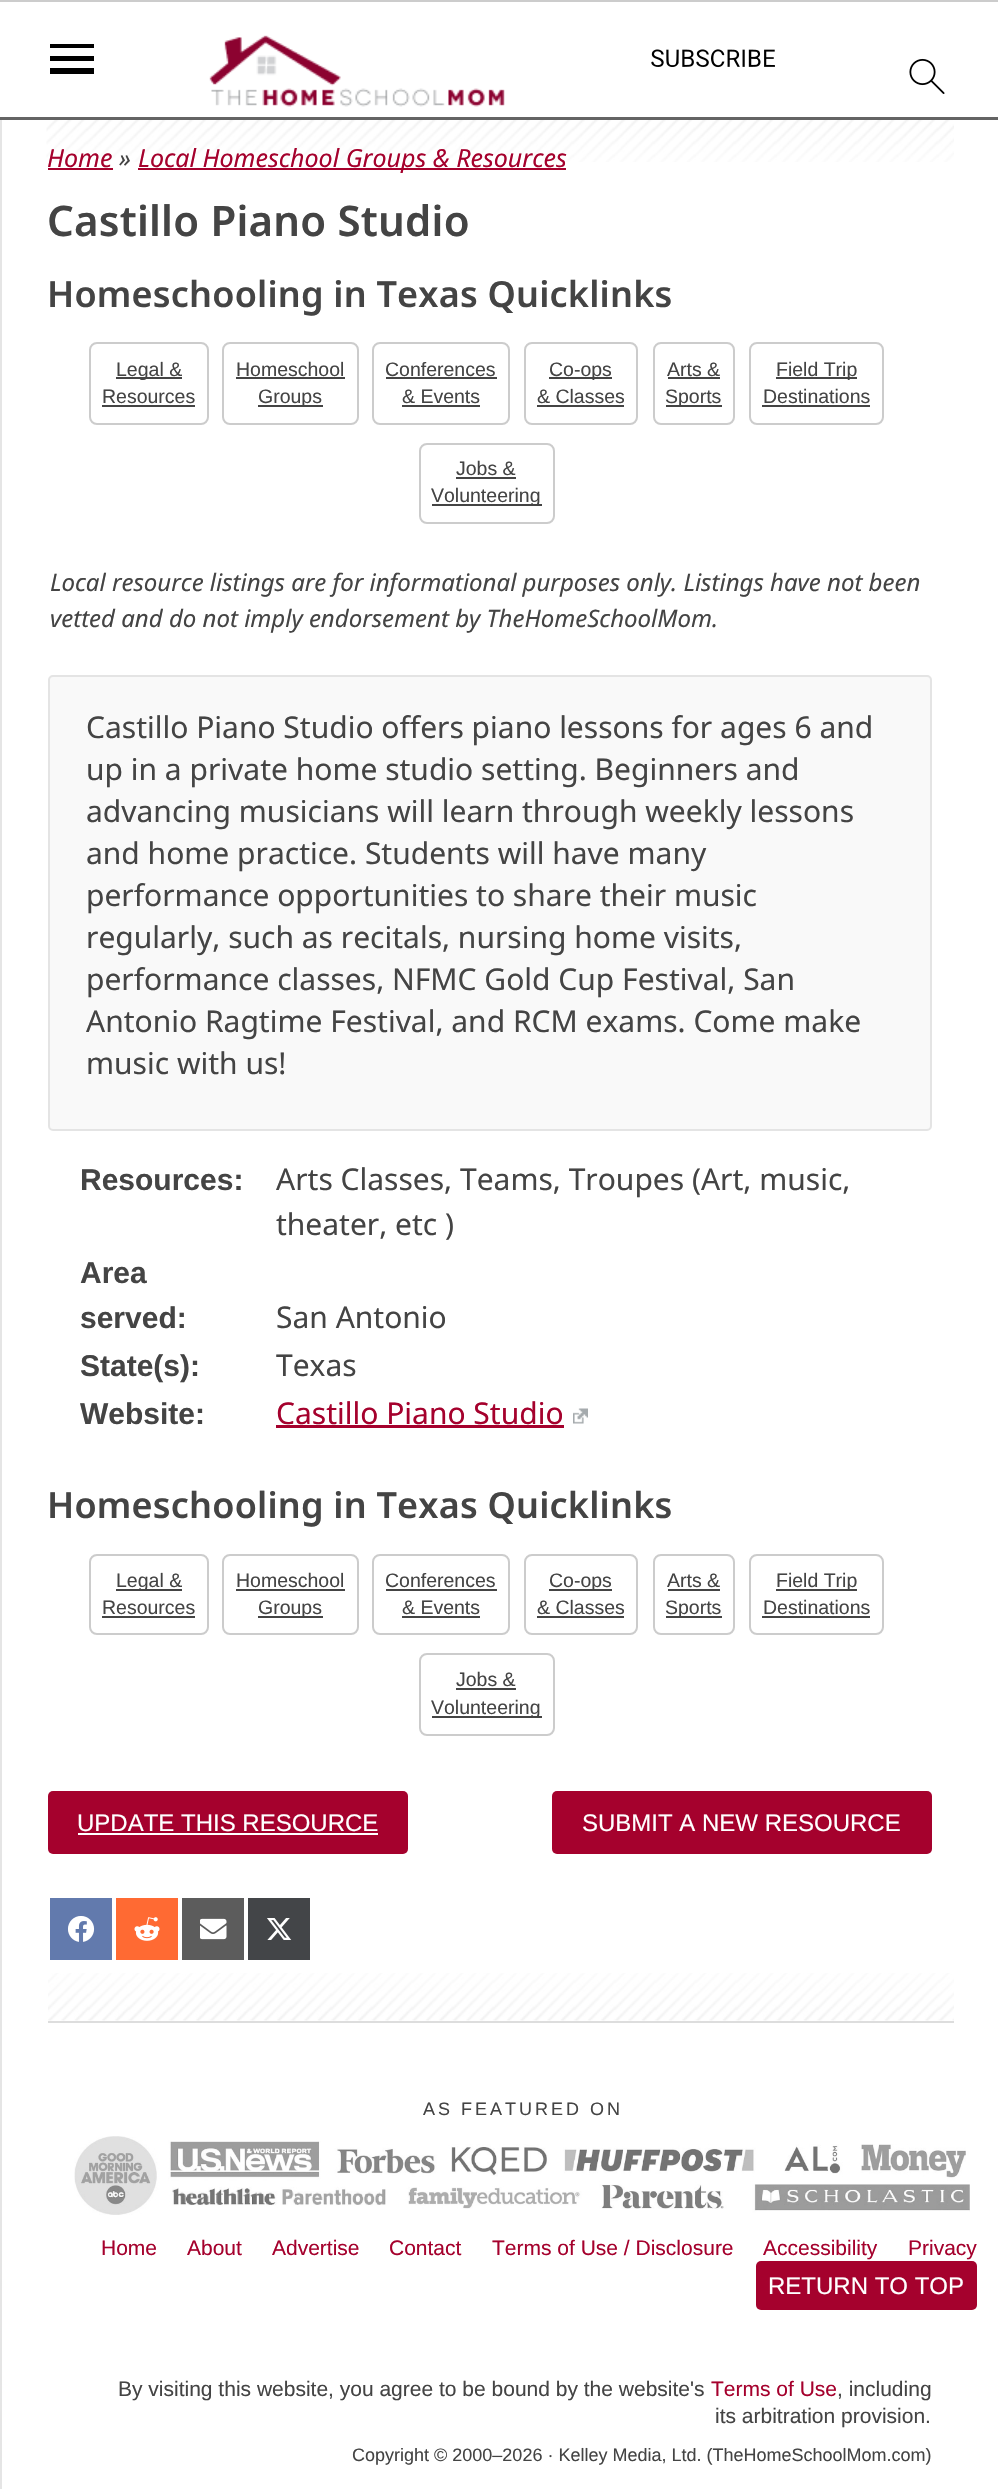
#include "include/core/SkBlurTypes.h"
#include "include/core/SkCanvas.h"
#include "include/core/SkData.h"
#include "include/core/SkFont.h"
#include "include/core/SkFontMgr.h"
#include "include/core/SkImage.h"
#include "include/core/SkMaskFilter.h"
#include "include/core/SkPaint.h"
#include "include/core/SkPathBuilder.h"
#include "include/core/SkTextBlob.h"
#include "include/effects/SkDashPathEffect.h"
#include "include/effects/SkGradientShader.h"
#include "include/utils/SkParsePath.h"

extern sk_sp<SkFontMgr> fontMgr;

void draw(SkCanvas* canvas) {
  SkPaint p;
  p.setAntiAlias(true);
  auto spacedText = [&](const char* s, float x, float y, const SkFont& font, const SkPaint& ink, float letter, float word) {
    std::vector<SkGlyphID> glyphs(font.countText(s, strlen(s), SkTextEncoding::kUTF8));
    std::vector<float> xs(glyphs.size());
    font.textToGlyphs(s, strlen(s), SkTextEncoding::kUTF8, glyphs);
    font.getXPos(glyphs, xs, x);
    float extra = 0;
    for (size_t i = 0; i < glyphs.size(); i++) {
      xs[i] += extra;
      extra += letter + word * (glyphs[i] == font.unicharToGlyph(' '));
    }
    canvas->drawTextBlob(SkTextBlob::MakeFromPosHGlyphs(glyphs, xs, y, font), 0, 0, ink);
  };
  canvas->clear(SK_ColorWHITE);
  p.setColor(SkColorSetRGB(229, 229, 229));
  canvas->drawRect(SkRect::MakeLTRB(0, 120, 2, 2489), p);
  p.setColor(SkColorSetRGB(204, 204, 204));
  canvas->drawRect(SkRect::MakeLTRB(0, 0, 998, 2), p);
  p.setColor(SkColorSetRGB(100, 100, 100));
  canvas->drawRect(SkRect::MakeLTRB(0, 117, 998, 120), p);
  p.setColor(SK_ColorBLACK);
  canvas->drawPath(SkPathBuilder().moveTo(50, 74).lineTo(94, 74).lineTo(94, 68).lineTo(50, 68).close().moveTo(50, 61).lineTo(94, 61).lineTo(94, 56).lineTo(50, 56).close().moveTo(50, 44).lineTo(50, 48).lineTo(94, 48).lineTo(94, 44).close().detach(), p);
  canvas->drawImageRect(SkImages::DeferredFromEncodedData(SkData::MakeFromFileName("images/1.png")), SkRect::MakeLTRB(209, 35, 505, 107), SkSamplingOptions());
  canvas->drawImageRect(SkImages::DeferredFromEncodedData(SkData::MakeFromFileName("images/2.png")), SkRect::MakeLTRB(651, 49, 775, 68), SkSamplingOptions());
  canvas->drawImageRect(SkImages::DeferredFromEncodedData(SkData::MakeFromFileName("images/3.png")), SkRect::MakeLTRB(909, 58, 945, 94), SkSamplingOptions());
  canvas->drawImageRect(SkImages::DeferredFromEncodedData(SkData::MakeFromFileName("images/4.png")), SkRect::MakeLTRB(46, 120, 954, 162), SkSamplingOptions());
  canvas->drawImageRect(SkImages::DeferredFromEncodedData(SkData::MakeFromFileName("images/5.png")), SkRect::MakeLTRB(48, 1973, 954, 2021), SkSamplingOptions());
  p.setColor(SkColorSetRGB(221, 221, 221));
  canvas->drawRect(SkRect::MakeLTRB(48, 2021, 954, 2023), p);
  p.setColor(SkColorSetRGB(165, 1, 45));
  canvas->drawRect(SkRect::MakeLTRB(48, 168, 113, 170), p);
  canvas->drawRect(SkRect::MakeLTRB(138, 168, 566, 170), p);
  p.setStyle(SkPaint::kStroke_Style);
  p.setStrokeWidth(2);
  p.setColor(SkColorSetRGB(204, 204, 204));
  canvas->drawRoundRect(SkRect::MakeLTRB(90, 343, 208, 424), 7, 7, p);
  p.setStyle(SkPaint::kFill_Style);
  p.setColor(SkColorSetRGB(68, 68, 68));
  canvas->drawRect(SkRect::MakeLTRB(116, 377, 182, 379), p);
  canvas->drawRect(SkRect::MakeLTRB(102, 405, 195, 407), p);
  p.setStyle(SkPaint::kStroke_Style);
  p.setColor(SkColorSetRGB(204, 204, 204));
  canvas->drawRoundRect(SkRect::MakeLTRB(223, 343, 358, 424), 7, 7, p);
  p.setStyle(SkPaint::kFill_Style);
  p.setColor(SkColorSetRGB(68, 68, 68));
  canvas->drawRect(SkRect::MakeLTRB(236, 377, 345, 379), p);
  canvas->drawRect(SkRect::MakeLTRB(258, 405, 323, 407), p);
  p.setStyle(SkPaint::kStroke_Style);
  p.setColor(SkColorSetRGB(204, 204, 204));
  canvas->drawRoundRect(SkRect::MakeLTRB(373, 343, 509, 424), 7, 7, p);
  p.setStyle(SkPaint::kFill_Style);
  p.setColor(SkColorSetRGB(68, 68, 68));
  canvas->drawRect(SkRect::MakeLTRB(386, 377, 497, 379), p);
  canvas->drawRect(SkRect::MakeLTRB(402, 405, 480, 407), p);
  p.setStyle(SkPaint::kStroke_Style);
  p.setColor(SkColorSetRGB(204, 204, 204));
  canvas->drawRoundRect(SkRect::MakeLTRB(525, 343, 637, 424), 7, 7, p);
  p.setStyle(SkPaint::kFill_Style);
  p.setColor(SkColorSetRGB(68, 68, 68));
  canvas->drawRect(SkRect::MakeLTRB(549, 377, 612, 379), p);
  canvas->drawRect(SkRect::MakeLTRB(537, 405, 624, 407), p);
  p.setStyle(SkPaint::kStroke_Style);
  p.setColor(SkColorSetRGB(204, 204, 204));
  canvas->drawRoundRect(SkRect::MakeLTRB(654, 343, 734, 424), 7, 7, p);
  p.setStyle(SkPaint::kFill_Style);
  p.setColor(SkColorSetRGB(68, 68, 68));
  canvas->drawRect(SkRect::MakeLTRB(668, 377, 720, 379), p);
  canvas->drawRect(SkRect::MakeLTRB(666, 405, 722, 407), p);
  p.setStyle(SkPaint::kStroke_Style);
  p.setColor(SkColorSetRGB(204, 204, 204));
  canvas->drawRoundRect(SkRect::MakeLTRB(750, 343, 883, 424), 7, 7, p);
  p.setStyle(SkPaint::kFill_Style);
  p.setColor(SkColorSetRGB(68, 68, 68));
  canvas->drawRect(SkRect::MakeLTRB(776, 377, 857, 379), p);
  canvas->drawRect(SkRect::MakeLTRB(762, 405, 870, 407), p);
  p.setStyle(SkPaint::kStroke_Style);
  p.setColor(SkColorSetRGB(204, 204, 204));
  canvas->drawRoundRect(SkRect::MakeLTRB(420, 444, 554, 523), 7, 7, p);
  p.setStyle(SkPaint::kFill_Style);
  p.setColor(SkColorSetRGB(68, 68, 68));
  canvas->drawRect(SkRect::MakeLTRB(456, 477, 516, 479), p);
  canvas->drawRect(SkRect::MakeLTRB(432, 504, 542, 506), p);
  p.setColor(SkColorSetRGB(249, 249, 249));
  canvas->drawRoundRect(SkRect::MakeLTRB(49, 676, 931, 1130), 4, 4, p);
  p.setStyle(SkPaint::kStroke_Style);
  p.setColor(SkColorSetRGB(228, 228, 228));
  canvas->drawRoundRect(SkRect::MakeLTRB(49, 676, 931, 1130), 4, 4, p);
  p.setStyle(SkPaint::kFill_Style);
  p.setColor(SkColorSetRGB(165, 1, 45));
  canvas->drawRect(SkRect::MakeLTRB(276, 1425, 564, 1428), p);
  canvas->drawImageRect(SkImages::DeferredFromEncodedData(SkData::MakeFromFileName("images/6.png")), SkRect::MakeLTRB(573, 1408, 588, 1424), SkSamplingOptions());
  p.setStyle(SkPaint::kStroke_Style);
  p.setColor(SkColorSetRGB(204, 204, 204));
  canvas->drawRoundRect(SkRect::MakeLTRB(90, 1555, 208, 1634), 7, 7, p);
  p.setStyle(SkPaint::kFill_Style);
  p.setColor(SkColorSetRGB(68, 68, 68));
  canvas->drawRect(SkRect::MakeLTRB(116, 1589, 182, 1591), p);
  canvas->drawRect(SkRect::MakeLTRB(102, 1616, 195, 1618), p);
  p.setStyle(SkPaint::kStroke_Style);
  p.setColor(SkColorSetRGB(204, 204, 204));
  canvas->drawRoundRect(SkRect::MakeLTRB(223, 1555, 358, 1634), 7, 7, p);
  p.setStyle(SkPaint::kFill_Style);
  p.setColor(SkColorSetRGB(68, 68, 68));
  canvas->drawRect(SkRect::MakeLTRB(236, 1589, 345, 1591), p);
  canvas->drawRect(SkRect::MakeLTRB(258, 1616, 323, 1618), p);
  p.setStyle(SkPaint::kStroke_Style);
  p.setColor(SkColorSetRGB(204, 204, 204));
  canvas->drawRoundRect(SkRect::MakeLTRB(373, 1555, 509, 1634), 7, 7, p);
  p.setStyle(SkPaint::kFill_Style);
  p.setColor(SkColorSetRGB(68, 68, 68));
  canvas->drawRect(SkRect::MakeLTRB(386, 1589, 497, 1591), p);
  canvas->drawRect(SkRect::MakeLTRB(402, 1616, 480, 1618), p);
  p.setStyle(SkPaint::kStroke_Style);
  p.setColor(SkColorSetRGB(204, 204, 204));
  canvas->drawRoundRect(SkRect::MakeLTRB(525, 1555, 637, 1634), 7, 7, p);
  p.setStyle(SkPaint::kFill_Style);
  p.setColor(SkColorSetRGB(68, 68, 68));
  canvas->drawRect(SkRect::MakeLTRB(549, 1589, 612, 1591), p);
  canvas->drawRect(SkRect::MakeLTRB(537, 1616, 624, 1618), p);
  p.setStyle(SkPaint::kStroke_Style);
  p.setColor(SkColorSetRGB(204, 204, 204));
  canvas->drawRoundRect(SkRect::MakeLTRB(654, 1555, 734, 1634), 7, 7, p);
  p.setStyle(SkPaint::kFill_Style);
  p.setColor(SkColorSetRGB(68, 68, 68));
  canvas->drawRect(SkRect::MakeLTRB(668, 1589, 720, 1591), p);
  canvas->drawRect(SkRect::MakeLTRB(666, 1616, 722, 1618), p);
  p.setStyle(SkPaint::kStroke_Style);
  p.setColor(SkColorSetRGB(204, 204, 204));
  canvas->drawRoundRect(SkRect::MakeLTRB(750, 1555, 883, 1634), 7, 7, p);
  p.setStyle(SkPaint::kFill_Style);
  p.setColor(SkColorSetRGB(68, 68, 68));
  canvas->drawRect(SkRect::MakeLTRB(776, 1589, 857, 1591), p);
  canvas->drawRect(SkRect::MakeLTRB(762, 1616, 870, 1618), p);
  p.setStyle(SkPaint::kStroke_Style);
  p.setColor(SkColorSetRGB(204, 204, 204));
  canvas->drawRoundRect(SkRect::MakeLTRB(420, 1654, 554, 1735), 7, 7, p);
  p.setStyle(SkPaint::kFill_Style);
  p.setColor(SkColorSetRGB(68, 68, 68));
  canvas->drawRect(SkRect::MakeLTRB(456, 1688, 516, 1690), p);
  canvas->drawRect(SkRect::MakeLTRB(432, 1716, 542, 1718), p);
  p.setColor(SkColorSetRGB(165, 1, 45));
  canvas->drawRoundRect(SkRect::MakeLTRB(48, 1791, 408, 1854), 5, 5, p);
  p.setColor(SK_ColorWHITE);
  canvas->drawRect(SkRect::MakeLTRB(78, 1833, 378, 1835), p);
  p.setColor(SkColorSetRGB(165, 1, 45));
  canvas->drawRoundRect(SkRect::MakeLTRB(552, 1791, 932, 1854), 5, 5, p);
  p.setColor(SkColorSetRGB(98, 122, 173));
  canvas->drawRect(SkRect::MakeLTRB(50, 1898, 112, 1960), p);
  canvas->drawImageRect(SkImages::DeferredFromEncodedData(SkData::MakeFromFileName("images/7.png")), SkRect::MakeLTRB(68, 1916, 95, 1942), SkSamplingOptions());
  p.setColor(SkColorSetRGB(255, 106, 51));
  canvas->drawRect(SkRect::MakeLTRB(116, 1898, 178, 1960), p);
  canvas->drawImageRect(SkImages::DeferredFromEncodedData(SkData::MakeFromFileName("images/8.png")), SkRect::MakeLTRB(134, 1917, 160, 1941), SkSamplingOptions());
  p.setColor(SkColorSetRGB(92, 92, 92));
  canvas->drawRect(SkRect::MakeLTRB(182, 1898, 244, 1960), p);
  canvas->drawImageRect(SkImages::DeferredFromEncodedData(SkData::MakeFromFileName("images/9.png")), SkRect::MakeLTRB(200, 1918, 227, 1940), SkSamplingOptions());
  p.setColor(SkColorSetRGB(67, 69, 72));
  canvas->drawRect(SkRect::MakeLTRB(248, 1898, 310, 1960), p);
  canvas->drawImageRect(SkImages::DeferredFromEncodedData(SkData::MakeFromFileName("images/10.png")), SkRect::MakeLTRB(267, 1918, 292, 1940), SkSamplingOptions());
  canvas->drawImageRect(SkImages::DeferredFromEncodedData(SkData::MakeFromFileName("images/11.png")), SkRect::MakeLTRB(74, 2136, 970, 2215), SkSamplingOptions());
  p.setColor(SkColorSetRGB(165, 1, 45));
  canvas->drawRoundRect(SkRect::MakeLTRB(756, 2261, 977, 2310), 5, 5, p);
  SkFont font1(fontMgr->matchFamilyStyle("Noto Sans", SkFontStyle::Italic()), 25);
  font1.setSubpixel(true);
  canvas->drawString("Home", 47, 167, font1, p);
  p.setColor(SkColorSetRGB(68, 68, 68));
  canvas->drawString("»", 119, 167, font1, p);
  p.setColor(SkColorSetRGB(165, 1, 45));
  canvas->drawString("Local Homeschool Groups & Resources", 138, 167, font1, p);
  SkFont font2(fontMgr->matchFamilyStyle("Noto Sans", SkFontStyle(600, SkFontStyle::kNormal_Width, SkFontStyle::kUpright_Slant)), 42);
  font2.setSubpixel(true);
  p.setColor(SkColorSetRGB(68, 68, 68));
  spacedText("Castillo Piano Studio", 47, 236, font2, p, 0.2f, 0);
  SkFont font3(fontMgr->matchFamilyStyle("Noto Sans", SkFontStyle(600, SkFontStyle::kNormal_Width, SkFontStyle::kUpright_Slant)), 36);
  font3.setSubpixel(true);
  spacedText("Homeschooling in Texas Quicklinks", 47, 307, font3, p, 0.2f, 0);
  SkFont font4(fontMgr->matchFamilyStyle("Liberation Sans", SkFontStyle::Normal()), 19.5f);
  font4.setSubpixel(true);
  canvas->drawString("Legal &", 116, 376, font4, p);
  canvas->drawString("Resources", 102, 403, font4, p);
  canvas->drawString("Homeschool", 236, 376, font4, p);
  canvas->drawString("Groups", 258, 403, font4, p);
  canvas->drawString("Conferences", 385, 376, font4, p);
  canvas->drawString("& Events", 402, 403, font4, p);
  canvas->drawString("Co-ops", 549, 376, font4, p);
  canvas->drawString("& Classes", 537, 403, font4, p);
  canvas->drawString("Arts &", 667, 376, font4, p);
  canvas->drawString("Sports", 665, 403, font4, p);
  canvas->drawString("Field Trip", 776, 376, font4, p);
  canvas->drawString("Destinations", 763, 403, font4, p);
  canvas->drawString("Jobs &", 456, 475, font4, p);
  canvas->drawString("Volunteering", 431, 502, font4, p);
  SkFont font5(fontMgr->matchFamilyStyle("Noto Sans", SkFontStyle::Italic()), 24);
  font5.setSubpixel(true);
  canvas->drawString("Local resource listings are for informational purposes only. Listings have not been", 50, 591, font5, p);
  canvas->drawString("vetted and do not imply endorsement by TheHomeSchoolMom.", 50, 627, font5, p);
  SkFont font6(fontMgr->matchFamilyStyle("Noto Sans", SkFontStyle::Normal()), 30);
  font6.setSubpixel(true);
  canvas->drawString("Castillo Piano Studio offers piano lessons for ages 6 and", 86, 738, font6, p);
  canvas->drawString("up in a private home studio setting. Beginners and", 86, 780, font6, p);
  canvas->drawString("advancing musicians will learn through weekly lessons", 86, 822, font6, p);
  canvas->drawString("and home practice. Students will have many", 86, 864, font6, p);
  canvas->drawString("performance opportunities to share their music", 86, 906, font6, p);
  canvas->drawString("regularly, such as recitals, nursing home visits,", 86, 948, font6, p);
  canvas->drawString("performance classes, NFMC Gold Cup Festival, San", 86, 990, font6, p);
  canvas->drawString("Antonio Ragtime Festival, and RCM exams. Come make", 86, 1032, font6, p);
  canvas->drawString("music with us!", 86, 1074, font6, p);
  SkFont font7(fontMgr->matchFamilyStyle("Liberation Sans", SkFontStyle::Bold()), 30);
  font7.setSubpixel(true);
  canvas->drawString("Resources:", 80, 1190, font7, p);
  canvas->drawString("Arts Classes, Teams, Troupes (Art, music,", 276, 1190, font6, p);
  canvas->drawString("theater, etc )", 276, 1235, font6, p);
  canvas->drawString("Area", 80, 1283, font7, p);
  canvas->drawString("served:", 80, 1328, font7, p);
  canvas->drawString("San Antonio", 276, 1328, font6, p);
  canvas->drawString("State(s):", 80, 1376, font7, p);
  canvas->drawString("Texas", 276, 1376, font6, p);
  canvas->drawString("Website:", 80, 1424, font7, p);
  p.setColor(SkColorSetRGB(165, 1, 45));
  canvas->drawString("Castillo Piano Studio", 276, 1424, font6, p);
  p.setColor(SkColorSetRGB(68, 68, 68));
  spacedText("Homeschooling in Texas Quicklinks", 47, 1518, font3, p, 0.2f, 0);
  canvas->drawString("Legal &", 116, 1587, font4, p);
  canvas->drawString("Resources", 102, 1614, font4, p);
  canvas->drawString("Homeschool", 236, 1587, font4, p);
  canvas->drawString("Groups", 258, 1614, font4, p);
  canvas->drawString("Conferences", 385, 1587, font4, p);
  canvas->drawString("& Events", 402, 1614, font4, p);
  canvas->drawString("Co-ops", 549, 1587, font4, p);
  canvas->drawString("& Classes", 537, 1614, font4, p);
  canvas->drawString("Arts &", 667, 1587, font4, p);
  canvas->drawString("Sports", 665, 1614, font4, p);
  canvas->drawString("Field Trip", 776, 1587, font4, p);
  canvas->drawString("Destinations", 763, 1614, font4, p);
  canvas->drawString("Jobs &", 456, 1686, font4, p);
  canvas->drawString("Volunteering", 431, 1714, font4, p);
  SkFont font8(fontMgr->matchFamilyStyle("Liberation Sans", SkFontStyle::Normal()), 24);
  font8.setSubpixel(true);
  p.setColor(SK_ColorWHITE);
  canvas->drawString("UPDATE THIS RESOURCE", 77, 1831, font8, p);
  canvas->drawString("SUBMIT A NEW RESOURCE", 582, 1831, font8, p);
  SkFont font9(fontMgr->matchFamilyStyle("Liberation Sans", SkFontStyle::Normal()), 18);
  font9.setSubpixel(true);
  p.setColor(SkColorSetRGB(68, 68, 68));
  spacedText("AS FEATURED ON", 423, 2115, font9, p, 3, 0);
  SkFont font10(fontMgr->matchFamilyStyle("Liberation Sans", SkFontStyle::Normal()), 21);
  font10.setSubpixel(true);
  p.setColor(SkColorSetRGB(165, 1, 45));
  canvas->drawString("Home", 101, 2255, font10, p);
  canvas->drawString("About", 187, 2255, font10, p);
  canvas->drawString("Advertise", 272, 2255, font10, p);
  canvas->drawString("Contact", 389, 2255, font10, p);
  canvas->drawString("Terms of Use / Disclosure", 492, 2255, font10, p);
  canvas->drawString("Accessibility", 763, 2255, font10, p);
  canvas->drawString("Privacy", 908, 2255, font10, p);
  p.setColor(SK_ColorWHITE);
  canvas->drawString("RETURN TO TOP", 768, 2294, font8, p);
  p.setColor(SkColorSetRGB(68, 68, 68));
  canvas->drawString("By visiting this website, you agree to be bound by the website's", 118, 2396, font10, p);
  p.setColor(SkColorSetRGB(165, 1, 45));
  canvas->drawString("Terms of Use", 711, 2396, font10, p);
  p.setColor(SkColorSetRGB(68, 68, 68));
  canvas->drawString(", including", 837, 2396, font10, p);
  canvas->drawString("its arbitration provision.", 715, 2423, font10, p);
  canvas->drawString("Copyright © 2000–2026 · Kelley Media, Ltd. (TheHomeSchoolMom.com)", 352, 2461, font9, p);
}
